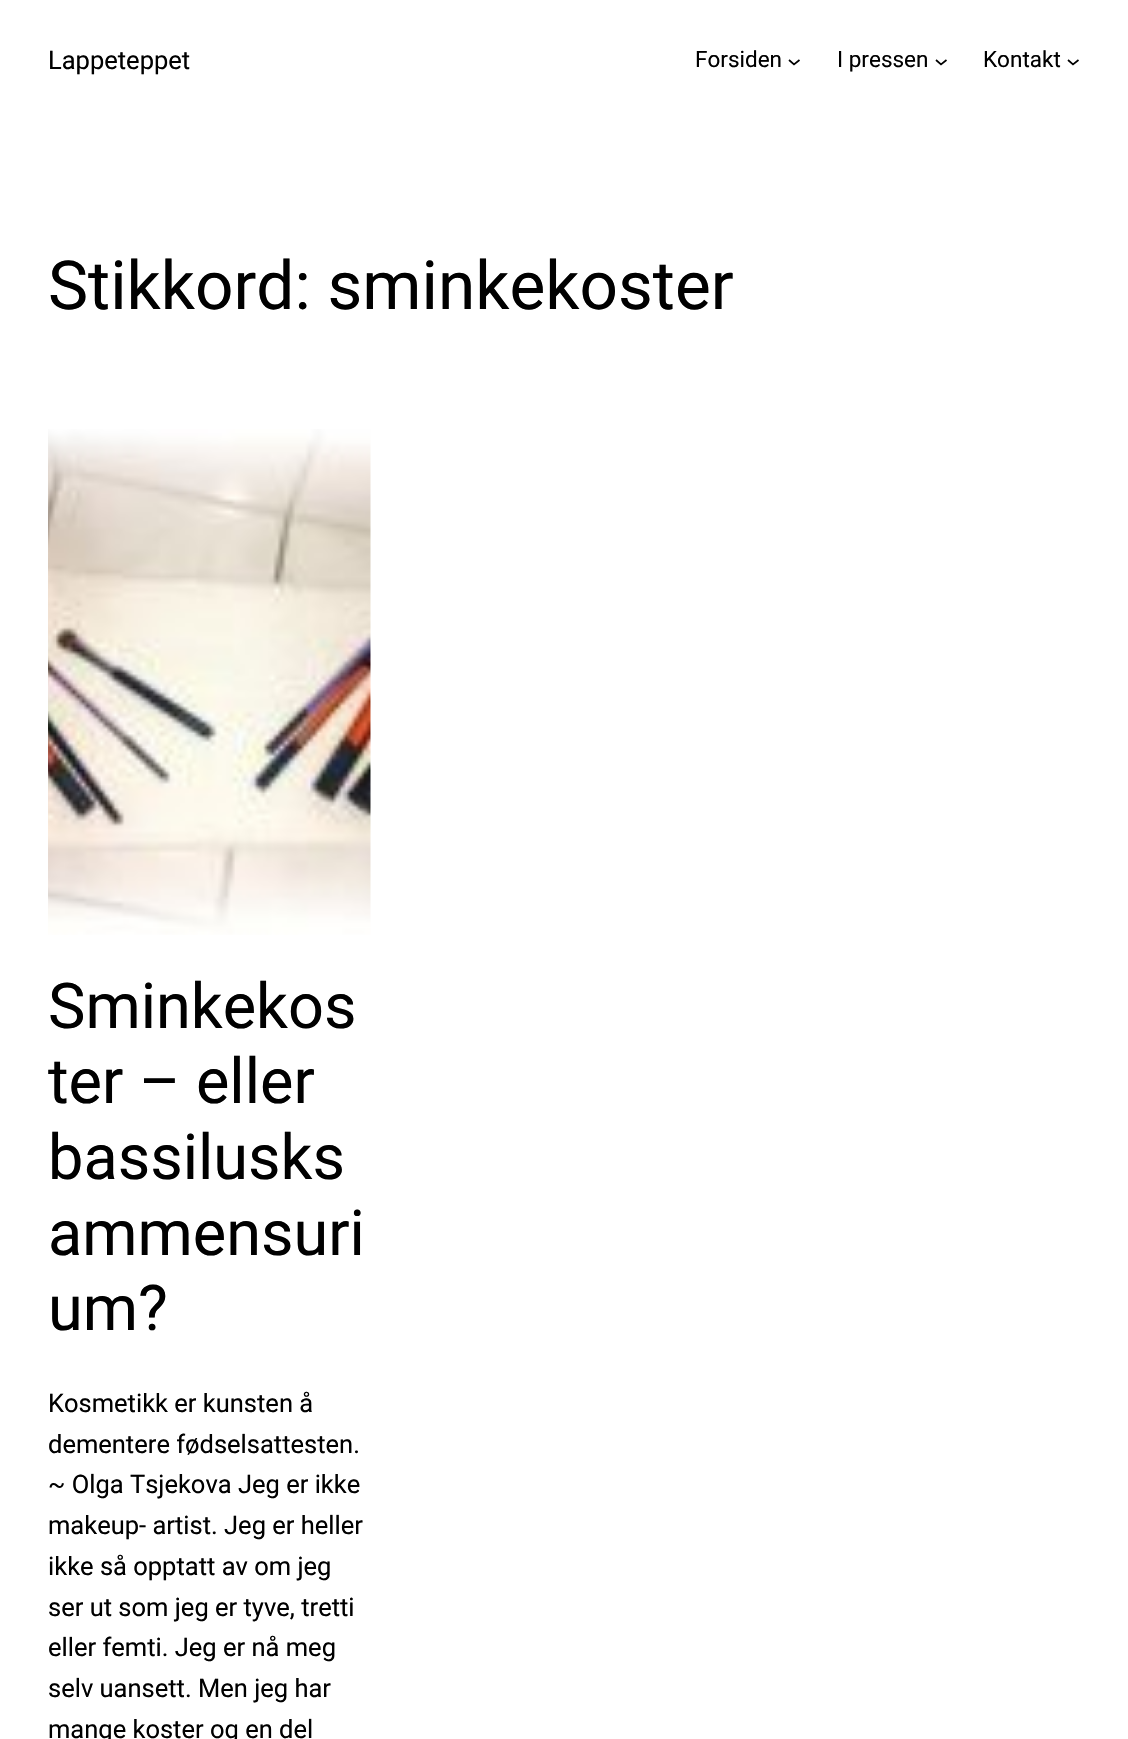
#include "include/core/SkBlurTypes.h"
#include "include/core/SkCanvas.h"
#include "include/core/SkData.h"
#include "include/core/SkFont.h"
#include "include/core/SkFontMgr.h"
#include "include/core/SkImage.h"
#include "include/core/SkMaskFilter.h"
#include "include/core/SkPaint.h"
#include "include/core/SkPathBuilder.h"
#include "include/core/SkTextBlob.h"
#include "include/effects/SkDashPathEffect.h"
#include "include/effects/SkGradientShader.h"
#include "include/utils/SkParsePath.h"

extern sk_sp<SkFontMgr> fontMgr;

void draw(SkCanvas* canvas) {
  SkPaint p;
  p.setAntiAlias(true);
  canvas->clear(SK_ColorWHITE);
  p.setStyle(SkPaint::kStroke_Style);
  p.setStrokeWidth(1.7f);
  p.setColor(SK_ColorBLACK);
  canvas->drawPath(SkPathBuilder().moveTo(789, 60).lineTo(794, 64.5f).lineTo(799.5f, 60).detach(), p);
  canvas->drawPath(SkPathBuilder().moveTo(936, 60).lineTo(941, 64.5f).lineTo(946.5f, 60).detach(), p);
  canvas->drawPath(SkPathBuilder().moveTo(1068, 60).lineTo(1073, 64.5f).lineTo(1078.5f, 60).detach(), p);
  canvas->drawImageRect(SkImages::DeferredFromEncodedData(SkData::MakeFromFileName("images/1.png")), SkRect::MakeLTRB(48, 429, 371, 935), SkSamplingOptions());
  SkFont font1(fontMgr->matchFamilyStyle("Roboto", SkFontStyle::Normal()), 25.5f);
  font1.setSubpixel(true);
  p.setStyle(SkPaint::kFill_Style);
  canvas->drawString("Lappeteppet", 48, 69, font1, p);
  SkFont font2(fontMgr->matchFamilyStyle("Roboto", SkFontStyle::Normal()), 22.5f);
  font2.setSubpixel(true);
  canvas->drawString("Forsiden", 695, 67, font2, p);
  canvas->drawString("I pressen", 837, 67, font2, p);
  canvas->drawString("Kontakt", 983, 67, font2, p);
  SkFont font3(fontMgr->matchFamilyStyle("Roboto", SkFontStyle::Normal()), 67.5f);
  font3.setSubpixel(true);
  canvas->drawString("Stikkord: sminkekoster", 48, 309, font3, p);
  SkFont font4(fontMgr->matchFamilyStyle("Roboto", SkFontStyle::Normal()), 63);
  font4.setSubpixel(true);
  canvas->drawString("Sminkekos", 48, 1028, font4, p);
  canvas->drawString("ter – eller", 48, 1103, font4, p);
  canvas->drawString("bassilusks", 48, 1179, font4, p);
  canvas->drawString("ammensuri", 48, 1255, font4, p);
  canvas->drawString("um?", 48, 1330, font4, p);
  canvas->drawString("Kosmetikk er kunsten å", 48, 1412, font1, p);
  canvas->drawString("dementere fødselsattesten.", 48, 1453, font1, p);
  canvas->drawString("~ Olga Tsjekova Jeg er ikke", 48, 1493, font1, p);
  canvas->drawString("makeup- artist. Jeg er heller", 48, 1534, font1, p);
  canvas->drawString("ikke så opptatt av om jeg", 48, 1575, font1, p);
  canvas->drawString("ser ut som jeg er tyve, tretti", 48, 1616, font1, p);
  canvas->drawString("eller femti. Jeg er nå meg", 48, 1656, font1, p);
  canvas->drawString("selv uansett. Men jeg har", 48, 1697, font1, p);
  canvas->drawString("mange koster og en del", 48, 1738, font1, p);
}
